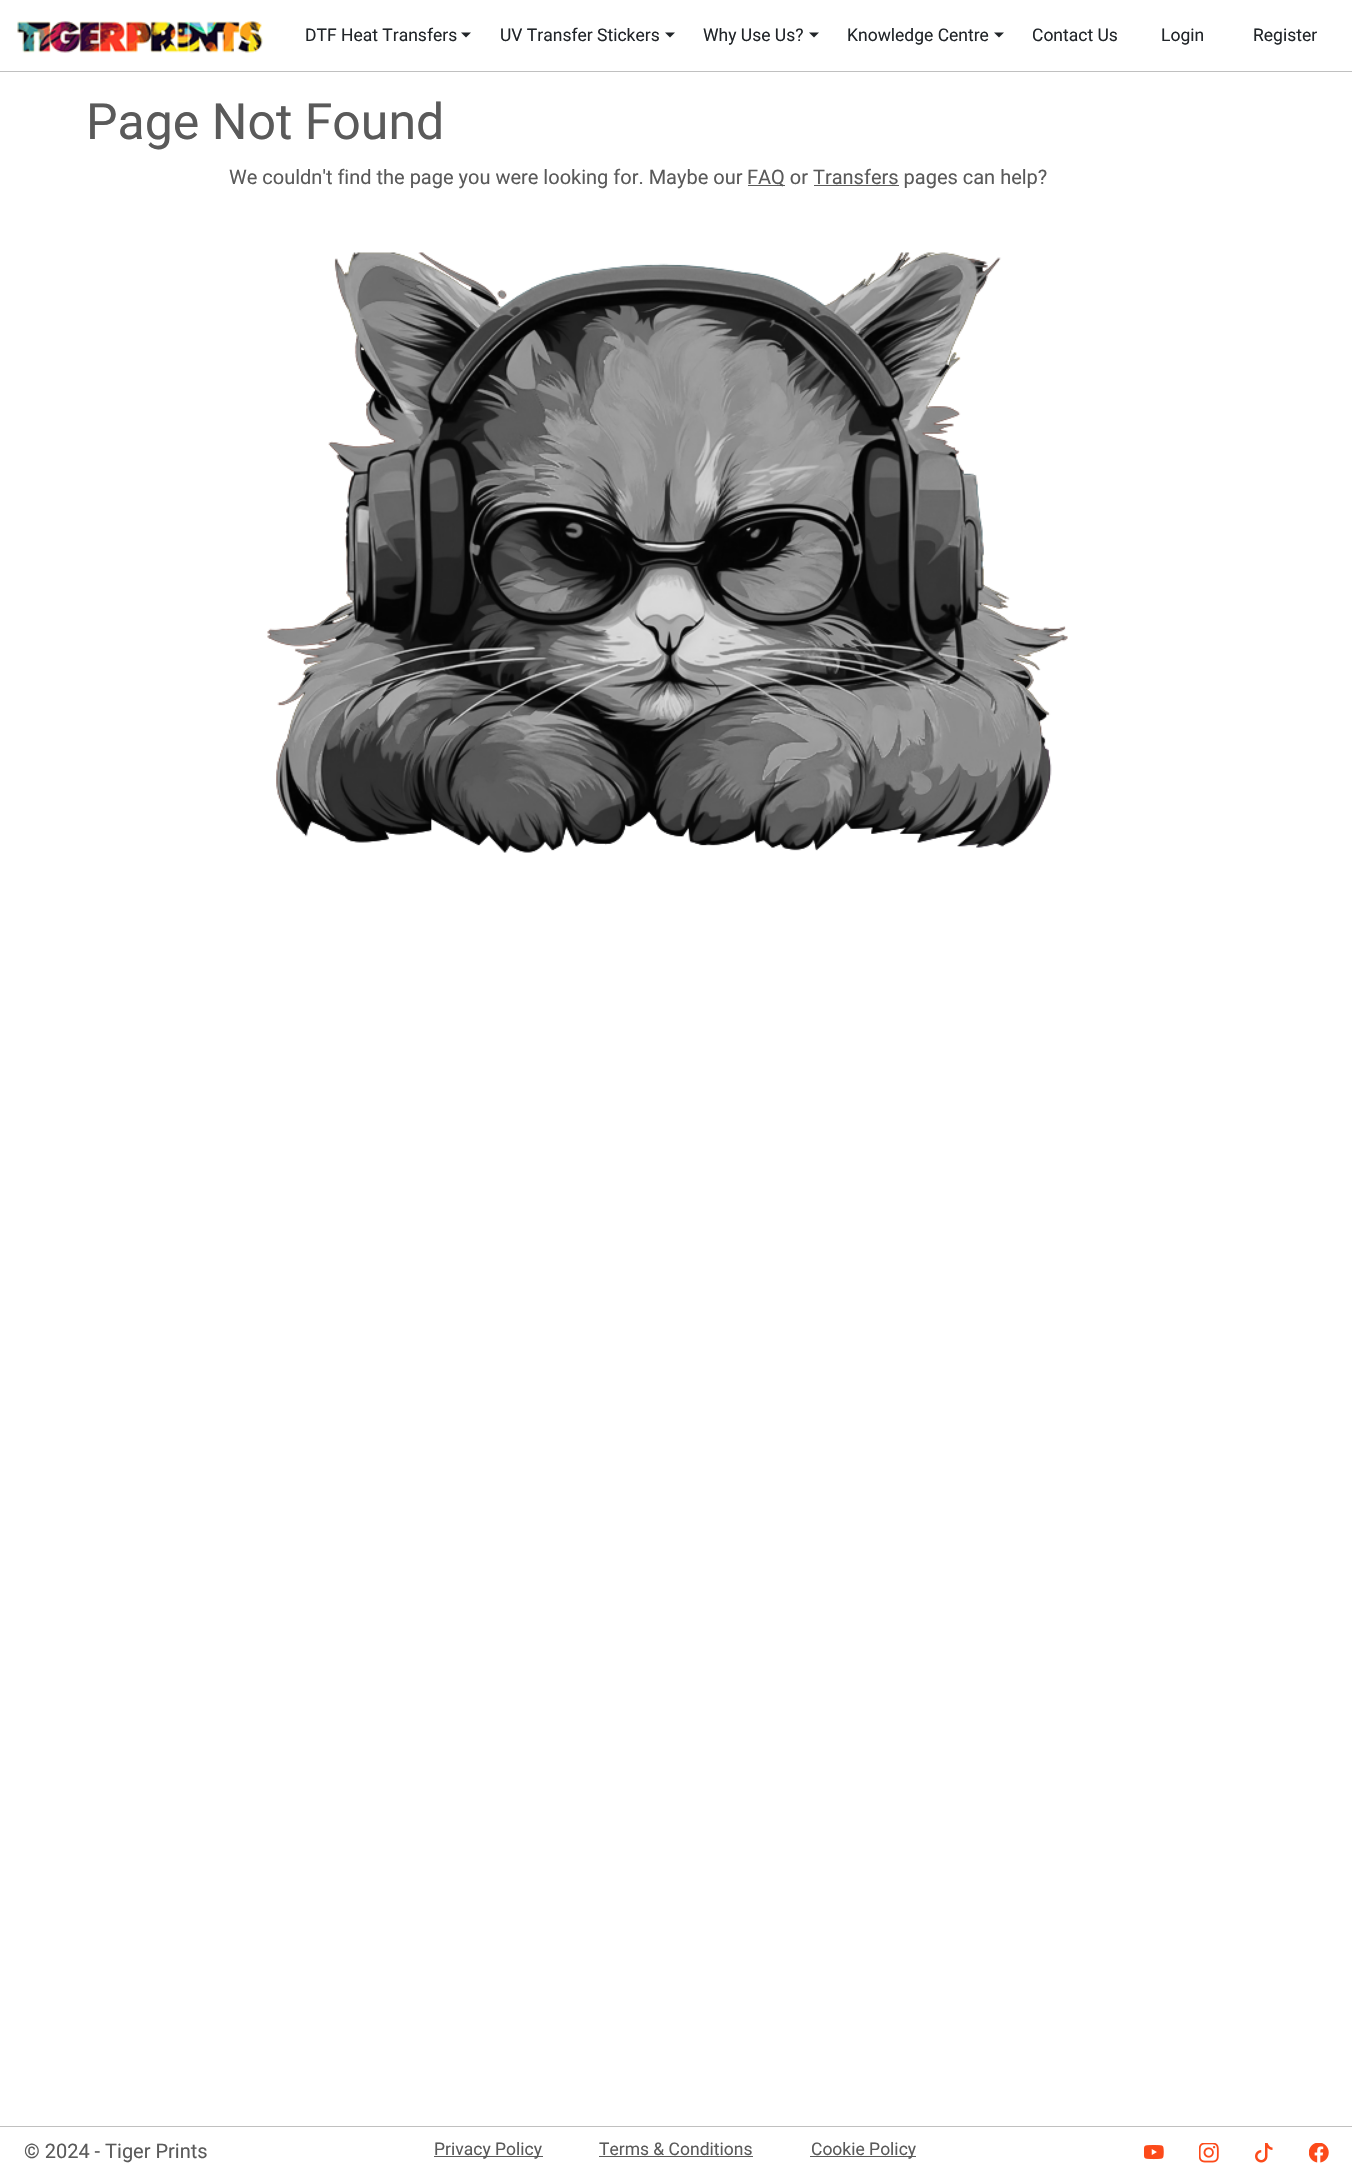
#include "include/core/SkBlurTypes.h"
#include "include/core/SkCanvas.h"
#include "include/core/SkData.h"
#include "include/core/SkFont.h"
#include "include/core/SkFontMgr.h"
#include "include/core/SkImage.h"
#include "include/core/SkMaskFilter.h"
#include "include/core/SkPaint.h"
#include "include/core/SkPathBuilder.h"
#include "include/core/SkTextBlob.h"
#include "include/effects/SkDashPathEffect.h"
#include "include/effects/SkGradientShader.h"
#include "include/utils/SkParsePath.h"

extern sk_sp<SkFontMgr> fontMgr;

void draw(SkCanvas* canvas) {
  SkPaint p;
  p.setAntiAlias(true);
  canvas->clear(SK_ColorWHITE);
  p.setColor(SkColorSetRGB(192, 192, 192));
  canvas->drawRect(SkRect::MakeLTRB(0, 71, 1352, 72), p);
  canvas->drawImageRect(SkImages::DeferredFromEncodedData(SkData::MakeFromFileName("images/1.png")), SkRect::MakeLTRB(17, 21, 263, 53), SkSamplingOptions());
  p.setColor(SkColorSetRGB(33, 37, 41));
  canvas->drawPath(SkPathBuilder().moveTo(461, 32.5f).lineTo(471, 32.5f).lineTo(466, 37.5f).close().detach(), p);
  canvas->drawPath(SkPathBuilder().moveTo(665, 32.5f).lineTo(675, 32.5f).lineTo(670, 37.5f).close().detach(), p);
  canvas->drawPath(SkPathBuilder().moveTo(809, 32.5f).lineTo(819, 32.5f).lineTo(814, 37.5f).close().detach(), p);
  canvas->drawPath(SkPathBuilder().moveTo(994, 32.5f).lineTo(1004, 32.5f).lineTo(999, 37.5f).close().detach(), p);
  p.setColor(SkColorSetRGB(90, 90, 90));
  canvas->drawRect(SkRect::MakeLTRB(748, 185, 785, 186), p);
  canvas->drawRect(SkRect::MakeLTRB(814, 185, 899, 186), p);
  canvas->drawImageRect(SkImages::DeferredFromEncodedData(SkData::MakeFromFileName("images/2.png")), SkRect::MakeLTRB(267, 252, 1068, 853), SkSamplingOptions());
  p.setColor(SkColorSetRGB(192, 192, 192));
  canvas->drawRect(SkRect::MakeLTRB(0, 2126, 1352, 2127), p);
  p.setColor(SkColorSetRGB(90, 90, 90));
  canvas->drawRect(SkRect::MakeLTRB(434, 2156, 543, 2157), p);
  canvas->drawRect(SkRect::MakeLTRB(599, 2156, 753, 2157), p);
  canvas->drawRect(SkRect::MakeLTRB(810, 2156, 916, 2157), p);
  canvas->drawImageRect(SkImages::DeferredFromEncodedData(SkData::MakeFromFileName("images/3.png")), SkRect::MakeLTRB(1144, 2145, 1164, 2160), SkSamplingOptions());
  canvas->drawImageRect(SkImages::DeferredFromEncodedData(SkData::MakeFromFileName("images/4.png")), SkRect::MakeLTRB(1199, 2143, 1219, 2163), SkSamplingOptions());
  canvas->drawImageRect(SkImages::DeferredFromEncodedData(SkData::MakeFromFileName("images/5.png")), SkRect::MakeLTRB(1255, 2143, 1273, 2163), SkSamplingOptions());
  canvas->drawImageRect(SkImages::DeferredFromEncodedData(SkData::MakeFromFileName("images/6.png")), SkRect::MakeLTRB(1309, 2143, 1329, 2163), SkSamplingOptions());
  SkFont font1(fontMgr->matchFamilyStyle("Roboto", SkFontStyle::Normal()), 17.5f);
  font1.setSubpixel(true);
  p.setColor(SkColorSetRGB(33, 37, 41));
  canvas->drawString("DTF Heat Transfers", 305, 41, font1, p);
  canvas->drawString("UV Transfer Stickers", 500, 41, font1, p);
  canvas->drawString("Why Use Us?", 703, 41, font1, p);
  canvas->drawString("Knowledge Centre", 847, 41, font1, p);
  canvas->drawString("Contact Us", 1032, 41, font1, p);
  canvas->drawString("Login", 1161, 41, font1, p);
  canvas->drawString("Register", 1253, 41, font1, p);
  SkFont font2(fontMgr->matchFamilyStyle("Roboto", SkFontStyle::Normal()), 50);
  font2.setSubpixel(true);
  p.setColor(SkColorSetRGB(90, 90, 90));
  canvas->drawString("Page Not Found", 86, 139, font2, p);
  SkFont font3(fontMgr->matchFamilyStyle("Roboto", SkFontStyle::Normal()), 20);
  font3.setSubpixel(true);
  canvas->drawString("We couldn't find the page you were looking for. Maybe our", 229, 184, font3, p);
  canvas->drawString("FAQ or Transfers pages can help?", 747, 184, font3, p);
  canvas->drawString("© 2024 - Tiger Prints", 24, 2158, font3, p);
  canvas->drawString("Privacy Policy", 434, 2155, font1, p);
  canvas->drawString("Terms & Conditions", 599, 2155, font1, p);
  canvas->drawString("Cookie Policy", 811, 2155, font1, p);
}
